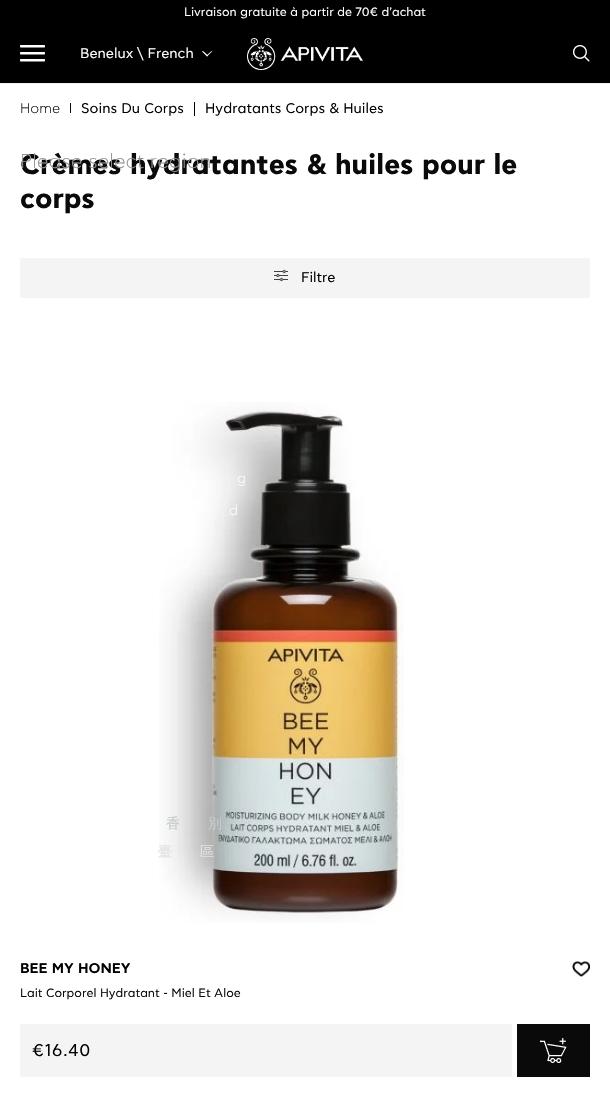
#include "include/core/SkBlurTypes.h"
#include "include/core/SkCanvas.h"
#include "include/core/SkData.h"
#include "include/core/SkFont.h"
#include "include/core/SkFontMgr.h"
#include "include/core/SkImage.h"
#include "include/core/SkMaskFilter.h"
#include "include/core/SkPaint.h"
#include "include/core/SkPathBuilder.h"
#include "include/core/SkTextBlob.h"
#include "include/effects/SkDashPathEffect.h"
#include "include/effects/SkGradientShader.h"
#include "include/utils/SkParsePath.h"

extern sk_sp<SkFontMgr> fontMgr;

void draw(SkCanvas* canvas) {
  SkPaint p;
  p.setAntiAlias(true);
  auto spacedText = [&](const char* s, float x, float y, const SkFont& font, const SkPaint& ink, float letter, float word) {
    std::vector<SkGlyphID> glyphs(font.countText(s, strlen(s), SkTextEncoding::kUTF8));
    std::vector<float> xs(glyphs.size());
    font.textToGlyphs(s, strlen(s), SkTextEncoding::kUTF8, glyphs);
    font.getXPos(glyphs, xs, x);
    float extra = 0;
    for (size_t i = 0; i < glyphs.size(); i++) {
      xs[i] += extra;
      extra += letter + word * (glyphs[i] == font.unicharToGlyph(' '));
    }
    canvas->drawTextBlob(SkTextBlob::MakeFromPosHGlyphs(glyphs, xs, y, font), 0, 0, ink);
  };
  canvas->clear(SK_ColorWHITE);
  p.setColor(SK_ColorBLACK);
  canvas->drawRect(SkRect::MakeLTRB(0, 0, 610, 83), p);
  p.setColor(SkColorSetRGB(240, 240, 240));
  canvas->drawRect(SkRect::MakeLTRB(0, 83, 610, 84), p);
  canvas->drawImageRect(SkImages::DeferredFromEncodedData(SkData::MakeFromFileName("images/1.png")), SkRect::MakeLTRB(20, 45, 45, 62), SkSamplingOptions());
  p.setColor(SK_ColorWHITE);
  canvas->drawPath(SkPathBuilder().moveTo(211.5f, 51).lineTo(212, 51.5f).lineTo(207, 56.5f).lineTo(206.5f, 55.5f).close().detach(), p);
  canvas->drawPath(SkPathBuilder().moveTo(203, 51).lineTo(208, 55.5f).lineTo(207, 56.5f).lineTo(202, 51.5f).close().detach(), p);
  canvas->drawImageRect(SkImages::DeferredFromEncodedData(SkData::MakeFromFileName("images/2.png")), SkRect::MakeLTRB(247, 38, 363, 70), SkSamplingOptions());
  canvas->drawImageRect(SkImages::DeferredFromEncodedData(SkData::MakeFromFileName("images/3.png")), SkRect::MakeLTRB(573, 45, 590, 62), SkSamplingOptions());
  p.setColor(SkColorSetRGB(10, 10, 10));
  canvas->drawRect(SkRect::MakeLTRB(70, 103, 71, 113), p);
  p.setColor(SK_ColorBLACK);
  canvas->drawRect(SkRect::MakeLTRB(194, 102, 195, 116), p);
  p.setColor(SkColorSetRGB(244, 244, 244));
  canvas->drawRoundRect(SkRect::MakeLTRB(20, 258, 590, 298), 2, 2, p);
  canvas->drawImageRect(SkImages::DeferredFromEncodedData(SkData::MakeFromFileName("images/4.png")), SkRect::MakeLTRB(274, 269, 288, 282), SkSamplingOptions());
  canvas->drawImageRect(SkImages::DeferredFromEncodedData(SkData::MakeFromFileName("images/5.png")), SkRect::MakeLTRB(159, 402, 404, 923), SkSamplingOptions());
  canvas->drawImageRect(SkImages::DeferredFromEncodedData(SkData::MakeFromFileName("images/6.png")), SkRect::MakeLTRB(572, 961, 590, 977), SkSamplingOptions());
  canvas->drawRoundRect(SkRect::MakeLTRB(20, 1024, 512, 1077), 2, 2, p);
  p.setColor(SkColorSetRGB(10, 10, 10));
  canvas->drawRect(SkRect::MakeLTRB(517, 1024, 590, 1077), p);
  canvas->drawImageRect(SkImages::DeferredFromEncodedData(SkData::MakeFromFileName("images/7.png")), SkRect::MakeLTRB(540, 1038, 567, 1063), SkSamplingOptions());
  SkFont font1(fontMgr->matchFamilyStyle("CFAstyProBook", SkFontStyle::Normal()), 12);
  font1.setSubpixel(true);
  p.setColor(SK_ColorWHITE);
  canvas->drawString("Livraison gratuite à partir de 70€ d'achat", 184, 16, font1, p);
  SkFont font2(fontMgr->matchFamilyStyle("CFAstyProBook", SkFontStyle::Normal()), 14);
  font2.setSubpixel(true);
  canvas->drawString("Benelux \\ French", 80, 58, font2, p);
  SkFont font3(fontMgr->matchFamilyStyle("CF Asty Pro", SkFontStyle(300, SkFontStyle::kNormal_Width, SkFontStyle::kUpright_Slant)), 14);
  font3.setSubpixel(true);
  canvas->drawString("g", 237, 483, font3, p);
  canvas->drawString("d", 229, 515, font3, p);
  SkFont font4(fontMgr->matchFamilyStyle("WenQuanYi Zen Hei", SkFontStyle(500, SkFontStyle::kNormal_Width, SkFontStyle::kUpright_Slant)), 14);
  font4.setSubpixel(true);
  p.setColor(SkColorSetRGB(197, 202, 203));
  canvas->drawString("香", 166, 828, font4, p);
  canvas->drawString("別", 208, 828, font4, p);
  p.setColor(SkColorSetRGB(225, 225, 225));
  canvas->drawString("臺", 158, 856, font4, p);
  canvas->drawString("區", 200, 856, font4, p);
  p.setColor(SK_ColorBLACK);
  canvas->drawString("Home", 20, 113, font3, p);
  canvas->drawString("Soins Du Corps", 81, 113, font2, p);
  canvas->drawString("Hydratants Corps & Huiles", 205, 113, font2, p);
  SkFont font5(fontMgr->matchFamilyStyle("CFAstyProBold", SkFontStyle::Bold()), 28);
  font5.setSubpixel(true);
  p.setColor(SkColorSetRGB(10, 10, 10));
  canvas->drawString("Crèmes hydratantes & huiles pour le", 20, 174, font5, p);
  SkFont font6(fontMgr->matchFamilyStyle("CF Asty Pro", SkFontStyle(300, SkFontStyle::kNormal_Width, SkFontStyle::kUpright_Slant)), 20);
  font6.setSubpixel(true);
  p.setColor(SkColorSetRGB(148, 148, 148));
  canvas->drawString("Please select region", 20, 168, font6, p);
  p.setColor(SkColorSetRGB(10, 10, 10));
  canvas->drawString("corps", 20, 208, font5, p);
  p.setColor(SK_ColorBLACK);
  canvas->drawString("Filtre", 301, 282, font2, p);
  SkFont font7(fontMgr->matchFamilyStyle("CF Asty Pro", SkFontStyle(600, SkFontStyle::kNormal_Width, SkFontStyle::kUpright_Slant)), 14);
  font7.setSubpixel(true);
  canvas->drawString("BEE MY HONEY", 20, 973, font7, p);
  p.setColor(SkColorSetRGB(10, 10, 10));
  canvas->drawString("Lait Corporel Hydratant - Miel Et Aloe", 20, 997, font1, p);
  SkFont font8(fontMgr->matchFamilyStyle("CFAstyProBook", SkFontStyle::Normal()), 17);
  font8.setSubpixel(true);
  p.setColor(SK_ColorBLACK);
  spacedText("€16.40", 32, 1056, font8, p, 0.75f, 0);
}
